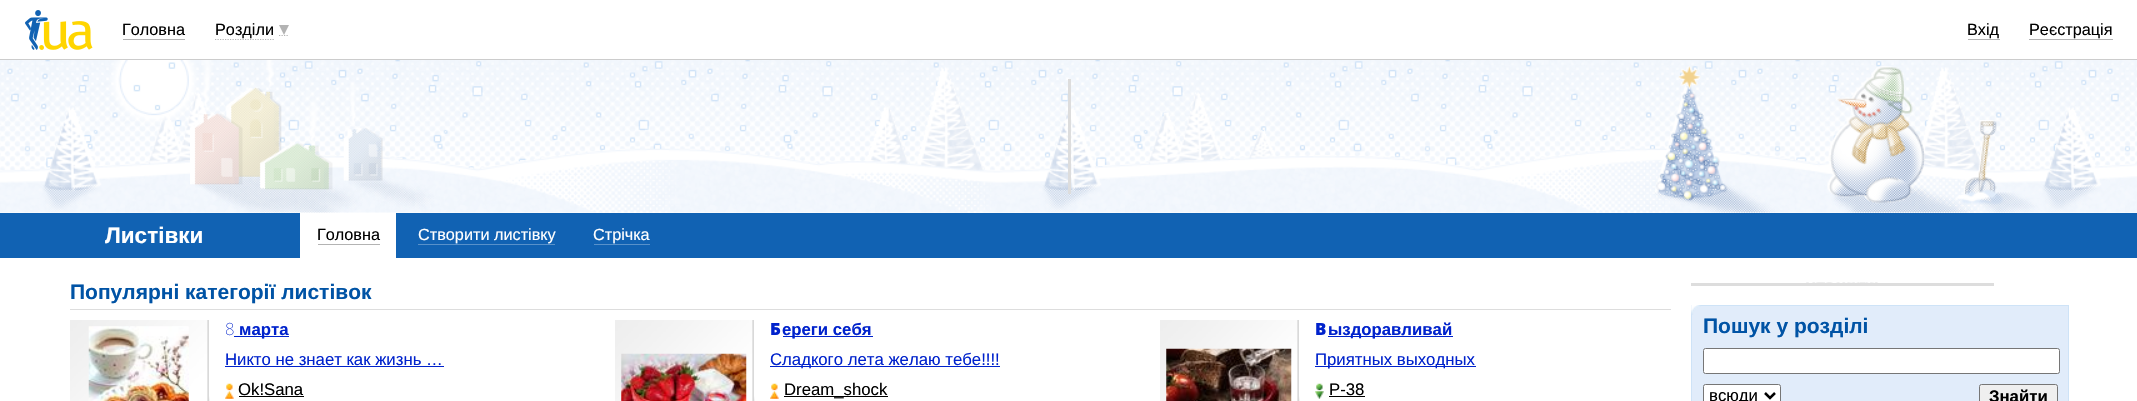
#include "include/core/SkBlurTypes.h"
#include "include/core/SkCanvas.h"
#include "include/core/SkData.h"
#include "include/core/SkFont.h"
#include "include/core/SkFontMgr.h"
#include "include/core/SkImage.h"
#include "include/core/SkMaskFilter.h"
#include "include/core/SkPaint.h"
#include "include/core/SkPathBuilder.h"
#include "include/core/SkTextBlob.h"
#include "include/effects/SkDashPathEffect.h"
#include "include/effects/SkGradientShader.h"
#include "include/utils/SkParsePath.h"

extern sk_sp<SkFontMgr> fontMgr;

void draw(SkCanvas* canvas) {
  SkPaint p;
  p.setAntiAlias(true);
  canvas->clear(SK_ColorWHITE);
  p.setColor(SkColorSetRGB(204, 204, 204));
  canvas->drawRect(SkRect::MakeLTRB(0, 59, 2137, 60), p);
  canvas->drawImageRect(SkImages::DeferredFromEncodedData(SkData::MakeFromFileName("images/1.png")), SkRect::MakeLTRB(25, 10, 93, 50), SkSamplingOptions());
  p.setColor(SkColorSetRGB(179, 179, 179));
  canvas->drawRect(SkRect::MakeLTRB(123, 39, 185, 40), p);
  p.setStyle(SkPaint::kStroke_Style);
  p.setStrokeWidth(1.2f);
  p.setPathEffect(SkDashPathEffect::Make({{1.25f, 1.25f}}, 0));
  canvas->drawPath(SkPathBuilder().moveTo(215, 39.5f).lineTo(274, 39.5f).detach(), p);
  p.setPathEffect(nullptr);
  p.setPathEffect(SkDashPathEffect::Make({{1.25f, 1.25f}}, 0));
  canvas->drawPath(SkPathBuilder().moveTo(279, 35.5f).lineTo(289, 35.5f).detach(), p);
  p.setPathEffect(nullptr);
  p.setStyle(SkPaint::kFill_Style);
  canvas->drawPath(SkPathBuilder().moveTo(279, 25).lineTo(289, 25).lineTo(284, 35).close().detach(), p);
  canvas->drawRect(SkRect::MakeLTRB(1968, 39, 2000, 40), p);
  canvas->drawRect(SkRect::MakeLTRB(2029, 39, 2113, 40), p);
  canvas->drawImageRect(SkImages::DeferredFromEncodedData(SkData::MakeFromFileName("images/2.png")), SkRect::MakeLTRB(0, 60, 2137, 213), SkSamplingOptions());
  p.setColor(SkColorSetRGB(221, 221, 221));
  canvas->drawRect(SkRect::MakeLTRB(1068, 79, 1071, 194), p);
  p.setColor(SkColorSetRGB(17, 98, 179));
  canvas->drawRect(SkRect::MakeLTRB(0, 213, 2137, 258), p);
  p.setColor(SK_ColorWHITE);
  canvas->drawRect(SkRect::MakeLTRB(300, 213, 396, 258), p);
  p.setColor(SkColorSetRGB(179, 179, 179));
  canvas->drawRect(SkRect::MakeLTRB(318, 244, 380, 245), p);
  p.setColor(SkColorSetRGB(88, 145, 202));
  canvas->drawRect(SkRect::MakeLTRB(418, 244, 555, 245), p);
  canvas->drawRect(SkRect::MakeLTRB(594, 244, 650, 245), p);
  p.setColor(SkColorSetRGB(221, 221, 221));
  canvas->drawRect(SkRect::MakeLTRB(70, 309, 1671, 310), p);
  canvas->drawImageRect(SkImages::DeferredFromEncodedData(SkData::MakeFromFileName("images/3.png")), SkRect::MakeLTRB(70, 320, 210, 401), SkSamplingOptions());
  canvas->drawImageRect(SkImages::DeferredFromEncodedData(SkData::MakeFromFileName("images/4.png")), SkRect::MakeLTRB(88, 326, 189, 401), SkSamplingOptions());
  p.setColor(SkColorSetRGB(0, 34, 204));
  canvas->drawRect(SkRect::MakeLTRB(234, 336, 289, 337), p);
  canvas->drawRect(SkRect::MakeLTRB(225, 366, 444, 367), p);
  canvas->drawImageRect(SkImages::DeferredFromEncodedData(SkData::MakeFromFileName("images/5.png")), SkRect::MakeLTRB(225, 383, 234, 399), SkSamplingOptions());
  p.setColor(SK_ColorBLACK);
  canvas->drawRect(SkRect::MakeLTRB(239, 396, 304, 397), p);
  canvas->drawImageRect(SkImages::DeferredFromEncodedData(SkData::MakeFromFileName("images/3.png")), SkRect::MakeLTRB(615, 320, 755, 401), SkSamplingOptions());
  canvas->drawImageRect(SkImages::DeferredFromEncodedData(SkData::MakeFromFileName("images/6.png")), SkRect::MakeLTRB(621, 353, 747, 401), SkSamplingOptions());
  p.setColor(SkColorSetRGB(0, 34, 204));
  canvas->drawRect(SkRect::MakeLTRB(783, 336, 873, 337), p);
  canvas->drawRect(SkRect::MakeLTRB(770, 366, 1000, 367), p);
  canvas->drawImageRect(SkImages::DeferredFromEncodedData(SkData::MakeFromFileName("images/5.png")), SkRect::MakeLTRB(770, 383, 779, 399), SkSamplingOptions());
  p.setColor(SK_ColorBLACK);
  canvas->drawRect(SkRect::MakeLTRB(784, 396, 888, 397), p);
  canvas->drawImageRect(SkImages::DeferredFromEncodedData(SkData::MakeFromFileName("images/3.png")), SkRect::MakeLTRB(1160, 320, 1300, 401), SkSamplingOptions());
  canvas->drawImageRect(SkImages::DeferredFromEncodedData(SkData::MakeFromFileName("images/7.png")), SkRect::MakeLTRB(1166, 348, 1292, 401), SkSamplingOptions());
  p.setColor(SkColorSetRGB(0, 34, 204));
  canvas->drawRect(SkRect::MakeLTRB(1328, 336, 1453, 337), p);
  canvas->drawRect(SkRect::MakeLTRB(1315, 366, 1476, 367), p);
  canvas->drawImageRect(SkImages::DeferredFromEncodedData(SkData::MakeFromFileName("images/8.png")), SkRect::MakeLTRB(1315, 383, 1324, 399), SkSamplingOptions());
  p.setColor(SK_ColorBLACK);
  canvas->drawRect(SkRect::MakeLTRB(1329, 396, 1365, 397), p);
  canvas->drawImageRect(SkImages::DeferredFromEncodedData(SkData::MakeFromFileName("images/9.png")), SkRect::MakeLTRB(1806, 282, 1878, 283), SkSamplingOptions());
  p.setColor(SkColorSetRGB(221, 221, 221));
  canvas->drawRect(SkRect::MakeLTRB(1691, 283, 1994, 286), p);
  p.setColor(SkColorSetRGB(225, 236, 250));
  canvas->drawRect(SkRect::MakeLTRB(1691.5f, 305.5f, 2068.5f, 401.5f), p);
  p.setStyle(SkPaint::kStroke_Style);
  p.setStrokeWidth(1);
  p.setColor(SkColorSetRGB(206, 227, 247));
  canvas->drawRect(SkRect::MakeLTRB(1691.5f, 305.5f, 2068.5f, 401.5f), p);
  canvas->drawImageRect(SkImages::DeferredFromEncodedData(SkData::MakeFromFileName("images/10.png")), SkRect::MakeLTRB(1691, 305, 1701, 315), SkSamplingOptions());
  p.setStyle(SkPaint::kFill_Style);
  p.setColor(SK_ColorWHITE);
  canvas->drawRoundRect(SkRect::MakeLTRB(1703.5f, 348.5f, 2059.5f, 373.5f), 2, 2, p);
  p.setStyle(SkPaint::kStroke_Style);
  p.setColor(SkColorSetRGB(118, 118, 118));
  canvas->drawRoundRect(SkRect::MakeLTRB(1703.5f, 348.5f, 2059.5f, 373.5f), 2, 2, p);
  p.setStyle(SkPaint::kFill_Style);
  p.setColor(SK_ColorWHITE);
  canvas->drawRoundRect(SkRect::MakeLTRB(1703.5f, 384.5f, 1780.5f, 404.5f), 2, 2, p);
  p.setStyle(SkPaint::kStroke_Style);
  p.setColor(SkColorSetRGB(118, 118, 118));
  canvas->drawRoundRect(SkRect::MakeLTRB(1703.5f, 384.5f, 1780.5f, 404.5f), 2, 2, p);
  p.setStrokeWidth(2.5f);
  p.setColor(SK_ColorBLACK);
  canvas->drawPath(SkPathBuilder().moveTo(1765, 393).lineTo(1770, 398).lineTo(1775, 393).detach(), p);
  p.setStyle(SkPaint::kFill_Style);
  p.setColor(SkColorSetRGB(239, 239, 239));
  canvas->drawRoundRect(SkRect::MakeLTRB(1979.5f, 384.5f, 2057.5f, 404.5f), 2, 2, p);
  p.setStyle(SkPaint::kStroke_Style);
  p.setStrokeWidth(1);
  p.setColor(SkColorSetRGB(118, 118, 118));
  canvas->drawRoundRect(SkRect::MakeLTRB(1979.5f, 384.5f, 2057.5f, 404.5f), 2, 2, p);
  SkFont font1(fontMgr->matchFamilyStyle("Liberation Sans", SkFontStyle::Normal()), 16.25f);
  font1.setSubpixel(true);
  p.setStyle(SkPaint::kFill_Style);
  p.setColor(SK_ColorBLACK);
  canvas->drawString("Головна", 122, 35, font1, p);
  canvas->drawString("Розділи", 215, 35, font1, p);
  canvas->drawString("Вхід", 1967, 35, font1, p);
  canvas->drawString("Реєстрація", 2029, 35, font1, p);
  SkFont font2(fontMgr->matchFamilyStyle("Liberation Sans", SkFontStyle::Bold()), 22.5f);
  font2.setSubpixel(true);
  p.setColor(SK_ColorWHITE);
  canvas->drawString("Листівки", 105, 243, font2, p);
  p.setColor(SK_ColorBLACK);
  canvas->drawString("Головна", 317, 240, font1, p);
  p.setColor(SK_ColorWHITE);
  canvas->drawString("Створити листівку", 418, 240, font1, p);
  canvas->drawString("Стрічка", 593, 240, font1, p);
  SkFont font3(fontMgr->matchFamilyStyle("Liberation Sans", SkFontStyle::Bold()), 21);
  font3.setSubpixel(true);
  p.setColor(SkColorSetRGB(0, 83, 165));
  canvas->drawString("Популярні категорії листівок", 70, 299, font3, p);
  SkFont font4(fontMgr->matchFamilyStyle("Noto Sans", SkFontStyle(100, SkFontStyle::kNormal_Width, SkFontStyle::kUpright_Slant)), 16.75f);
  font4.setSubpixel(true);
  p.setColor(SkColorSetRGB(0, 34, 204));
  canvas->drawString("8", 225, 335, font4, p);
  SkFont font5(fontMgr->matchFamilyStyle("Liberation Sans", SkFontStyle::Bold()), 16.75f);
  font5.setSubpixel(true);
  canvas->drawString("марта", 239, 335, font5, p);
  SkFont font6(fontMgr->matchFamilyStyle("Liberation Sans", SkFontStyle::Normal()), 16.75f);
  font6.setSubpixel(true);
  canvas->drawString("Никто не знает как жизнь …", 225, 365, font6, p);
  p.setColor(SK_ColorBLACK);
  canvas->drawString("Ok!Sana", 238, 395, font6, p);
  SkFont font7(fontMgr->matchFamilyStyle("Noto Sans", SkFontStyle(900, SkFontStyle::kNormal_Width, SkFontStyle::kUpright_Slant)), 16.75f);
  font7.setSubpixel(true);
  p.setColor(SkColorSetRGB(0, 34, 204));
  canvas->drawString("Б", 770, 335, font7, p);
  canvas->drawString("ереги себя", 782, 335, font5, p);
  canvas->drawString("Сладкого лета желаю тебе!!!!", 770, 365, font6, p);
  p.setColor(SK_ColorBLACK);
  canvas->drawString("Dream_shock", 784, 395, font6, p);
  p.setColor(SkColorSetRGB(0, 34, 204));
  canvas->drawString("В", 1315, 335, font7, p);
  canvas->drawString("ыздоравливай", 1328, 335, font5, p);
  canvas->drawString("Приятных выходных", 1315, 365, font6, p);
  p.setColor(SK_ColorBLACK);
  canvas->drawString("P-38", 1329, 395, font6, p);
  p.setColor(SkColorSetRGB(0, 83, 165));
  canvas->drawString("Пошук у розділі", 1703, 333, font3, p);
  p.setColor(SK_ColorBLACK);
  canvas->drawString("всюди", 1709, 401, font6, p);
  canvas->drawString("Знайти", 1989, 402, font5, p);
}
